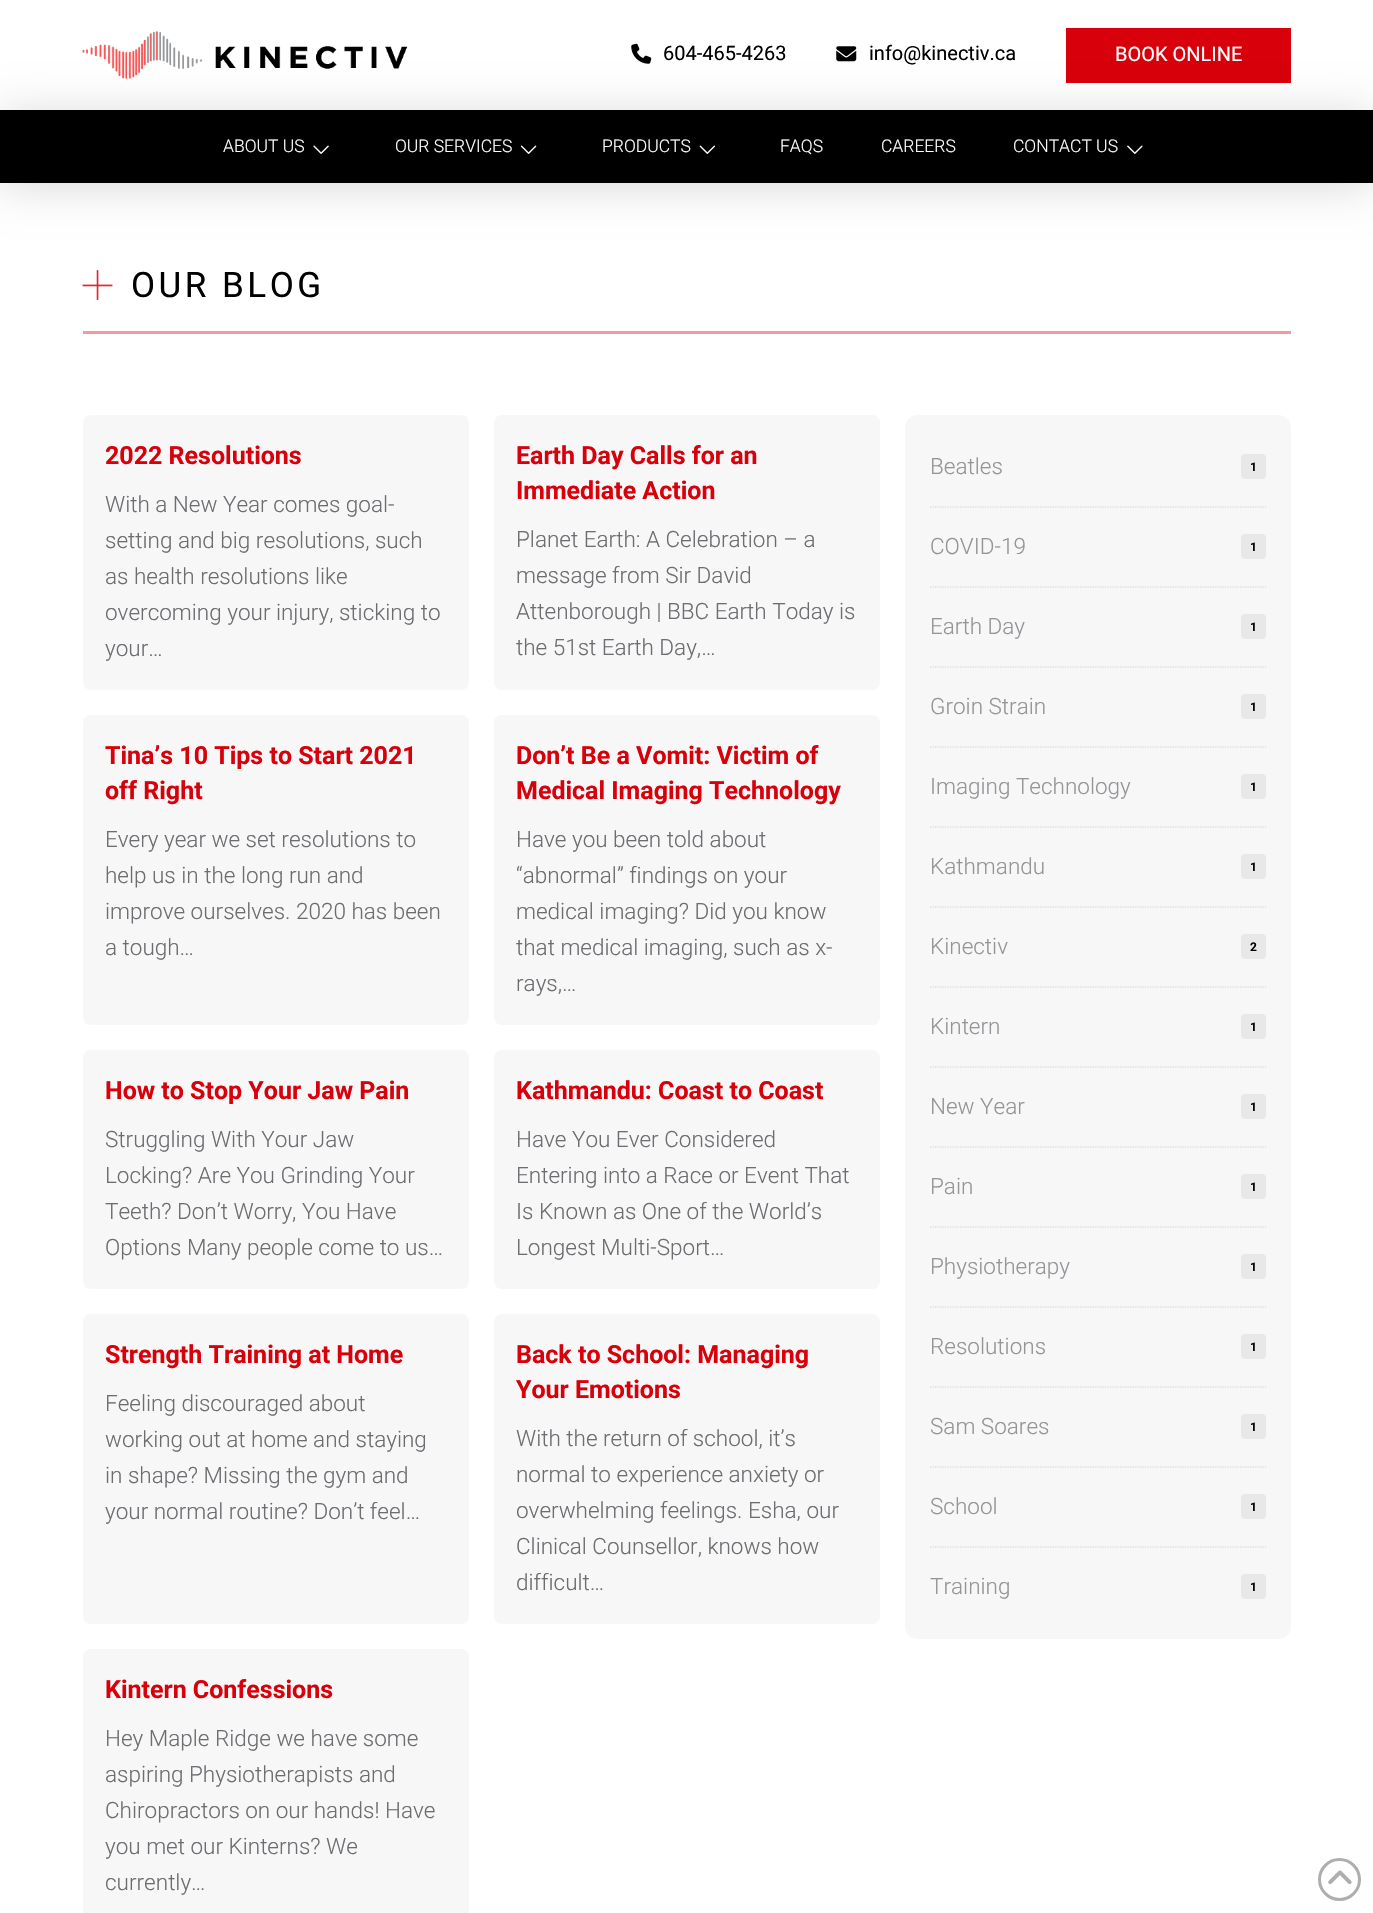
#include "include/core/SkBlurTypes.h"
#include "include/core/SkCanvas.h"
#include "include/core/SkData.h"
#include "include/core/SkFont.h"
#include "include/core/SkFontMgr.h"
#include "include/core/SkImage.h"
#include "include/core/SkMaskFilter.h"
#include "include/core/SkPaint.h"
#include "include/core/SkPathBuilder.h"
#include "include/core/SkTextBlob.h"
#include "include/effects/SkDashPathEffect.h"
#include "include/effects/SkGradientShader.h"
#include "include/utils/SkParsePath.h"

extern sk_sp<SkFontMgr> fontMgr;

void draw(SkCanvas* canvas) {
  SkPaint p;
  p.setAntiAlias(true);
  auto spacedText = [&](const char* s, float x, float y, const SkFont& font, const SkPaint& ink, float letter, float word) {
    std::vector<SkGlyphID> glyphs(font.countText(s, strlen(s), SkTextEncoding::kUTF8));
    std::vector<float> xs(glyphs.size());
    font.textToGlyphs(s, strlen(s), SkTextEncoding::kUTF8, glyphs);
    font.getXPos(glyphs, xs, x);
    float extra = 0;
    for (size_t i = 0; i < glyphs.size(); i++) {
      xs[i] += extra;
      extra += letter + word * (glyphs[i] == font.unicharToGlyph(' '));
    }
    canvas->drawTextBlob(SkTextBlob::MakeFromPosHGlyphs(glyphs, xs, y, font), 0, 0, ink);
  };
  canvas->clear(SK_ColorWHITE);
  canvas->drawImageRect(SkImages::DeferredFromEncodedData(SkData::MakeFromFileName("images/1.png")), SkRect::MakeLTRB(82, 31, 408, 79), SkSamplingOptions());
  canvas->drawImageRect(SkImages::DeferredFromEncodedData(SkData::MakeFromFileName("images/2.png")), SkRect::MakeLTRB(631, 43, 652, 64), SkSamplingOptions());
  canvas->drawImageRect(SkImages::DeferredFromEncodedData(SkData::MakeFromFileName("images/3.png")), SkRect::MakeLTRB(836, 46, 857, 62), SkSamplingOptions());
  p.setColor(SkColorSetRGB(216, 0, 10));
  canvas->drawRect(SkRect::MakeLTRB(1066, 28, 1291, 83), p);
  p.setColor(SkColorSetARGB(38, 0, 0, 0));
  p.setMaskFilter(SkMaskFilter::MakeBlur(kNormal_SkBlurStyle, 22.5f));
  canvas->drawRect(SkRect::MakeLTRB(0, 114, 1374, 186), p);
  p.setMaskFilter(nullptr);
  p.setColor(SK_ColorBLACK);
  canvas->drawRect(SkRect::MakeLTRB(0, 110, 1373, 183), p);
  canvas->drawImageRect(SkImages::DeferredFromEncodedData(SkData::MakeFromFileName("images/4.png")), SkRect::MakeLTRB(313, 145, 329, 154), SkSamplingOptions());
  canvas->drawImageRect(SkImages::DeferredFromEncodedData(SkData::MakeFromFileName("images/5.png")), SkRect::MakeLTRB(520, 145, 537, 154), SkSamplingOptions());
  canvas->drawImageRect(SkImages::DeferredFromEncodedData(SkData::MakeFromFileName("images/6.png")), SkRect::MakeLTRB(699, 145, 715, 154), SkSamplingOptions());
  canvas->drawImageRect(SkImages::DeferredFromEncodedData(SkData::MakeFromFileName("images/7.png")), SkRect::MakeLTRB(1127, 145, 1143, 154), SkSamplingOptions());
  canvas->drawImageRect(SkImages::DeferredFromEncodedData(SkData::MakeFromFileName("images/8.png")), SkRect::MakeLTRB(82, 270, 113, 300), SkSamplingOptions());
  p.setColor(SkColorSetRGB(245, 153, 160));
  canvas->drawRect(SkRect::MakeLTRB(83, 331, 1291, 334), p);
  p.setColor(SkColorSetRGB(247, 247, 247));
  canvas->drawRoundRect(SkRect::MakeLTRB(83, 415, 469, 690), 8, 8, p);
  canvas->drawRoundRect(SkRect::MakeLTRB(494, 415, 880, 690), 8, 8, p);
  canvas->drawRoundRect(SkRect::MakeLTRB(83, 715, 469, 1025), 8, 8, p);
  canvas->drawRoundRect(SkRect::MakeLTRB(494, 715, 880, 1025), 8, 8, p);
  canvas->drawRoundRect(SkRect::MakeLTRB(83, 1050, 469, 1289), 8, 8, p);
  canvas->drawRoundRect(SkRect::MakeLTRB(494, 1050, 880, 1289), 8, 8, p);
  canvas->drawRoundRect(SkRect::MakeLTRB(83, 1314, 469, 1624), 8, 8, p);
  canvas->drawRoundRect(SkRect::MakeLTRB(494, 1314, 880, 1624), 8, 8, p);
  canvas->drawRoundRect(SkRect::MakeLTRB(83, 1649, 469, 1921), 8, 8, p);
  canvas->drawRoundRect(SkRect::MakeLTRB(905, 415, 1291, 1639), 13, 13, p);
  p.setColor(SkColorSetRGB(232, 232, 232));
  canvas->drawRoundRect(SkRect::MakeLTRB(1241, 454, 1266, 479), 4, 4, p);
  p.setStyle(SkPaint::kStroke_Style);
  p.setStrokeWidth(1.2f);
  p.setColor(SkColorSetRGB(207, 207, 207));
  p.setPathEffect(SkDashPathEffect::Make({{1.25f, 1.25f}}, 0));
  canvas->drawPath(SkPathBuilder().moveTo(930, 507).lineTo(1266, 507).detach(), p);
  p.setPathEffect(nullptr);
  p.setStyle(SkPaint::kFill_Style);
  p.setColor(SkColorSetRGB(232, 232, 232));
  canvas->drawRoundRect(SkRect::MakeLTRB(1241, 534, 1266, 559), 4, 4, p);
  p.setStyle(SkPaint::kStroke_Style);
  p.setColor(SkColorSetRGB(207, 207, 207));
  p.setPathEffect(SkDashPathEffect::Make({{1.25f, 1.25f}}, 0));
  canvas->drawPath(SkPathBuilder().moveTo(930, 587).lineTo(1266, 587).detach(), p);
  p.setPathEffect(nullptr);
  p.setStyle(SkPaint::kFill_Style);
  p.setColor(SkColorSetRGB(232, 232, 232));
  canvas->drawRoundRect(SkRect::MakeLTRB(1241, 614, 1266, 639), 4, 4, p);
  p.setStyle(SkPaint::kStroke_Style);
  p.setColor(SkColorSetRGB(207, 207, 207));
  p.setPathEffect(SkDashPathEffect::Make({{1.25f, 1.25f}}, 0));
  canvas->drawPath(SkPathBuilder().moveTo(930, 667).lineTo(1266, 667).detach(), p);
  p.setPathEffect(nullptr);
  p.setStyle(SkPaint::kFill_Style);
  p.setColor(SkColorSetRGB(232, 232, 232));
  canvas->drawRoundRect(SkRect::MakeLTRB(1241, 694, 1266, 719), 4, 4, p);
  p.setStyle(SkPaint::kStroke_Style);
  p.setColor(SkColorSetRGB(207, 207, 207));
  p.setPathEffect(SkDashPathEffect::Make({{1.25f, 1.25f}}, 0));
  canvas->drawPath(SkPathBuilder().moveTo(930, 747).lineTo(1266, 747).detach(), p);
  p.setPathEffect(nullptr);
  p.setStyle(SkPaint::kFill_Style);
  p.setColor(SkColorSetRGB(232, 232, 232));
  canvas->drawRoundRect(SkRect::MakeLTRB(1241, 774, 1266, 799), 4, 4, p);
  p.setStyle(SkPaint::kStroke_Style);
  p.setColor(SkColorSetRGB(207, 207, 207));
  p.setPathEffect(SkDashPathEffect::Make({{1.25f, 1.25f}}, 0));
  canvas->drawPath(SkPathBuilder().moveTo(930, 827).lineTo(1266, 827).detach(), p);
  p.setPathEffect(nullptr);
  p.setStyle(SkPaint::kFill_Style);
  p.setColor(SkColorSetRGB(232, 232, 232));
  canvas->drawRoundRect(SkRect::MakeLTRB(1241, 854, 1266, 879), 4, 4, p);
  p.setStyle(SkPaint::kStroke_Style);
  p.setColor(SkColorSetRGB(207, 207, 207));
  p.setPathEffect(SkDashPathEffect::Make({{1.25f, 1.25f}}, 0));
  canvas->drawPath(SkPathBuilder().moveTo(930, 907).lineTo(1266, 907).detach(), p);
  p.setPathEffect(nullptr);
  p.setStyle(SkPaint::kFill_Style);
  p.setColor(SkColorSetRGB(232, 232, 232));
  canvas->drawRoundRect(SkRect::MakeLTRB(1241, 934, 1266, 959), 4, 4, p);
  p.setStyle(SkPaint::kStroke_Style);
  p.setColor(SkColorSetRGB(207, 207, 207));
  p.setPathEffect(SkDashPathEffect::Make({{1.25f, 1.25f}}, 0));
  canvas->drawPath(SkPathBuilder().moveTo(930, 987).lineTo(1266, 987).detach(), p);
  p.setPathEffect(nullptr);
  p.setStyle(SkPaint::kFill_Style);
  p.setColor(SkColorSetRGB(232, 232, 232));
  canvas->drawRoundRect(SkRect::MakeLTRB(1241, 1014, 1266, 1039), 4, 4, p);
  p.setStyle(SkPaint::kStroke_Style);
  p.setColor(SkColorSetRGB(207, 207, 207));
  p.setPathEffect(SkDashPathEffect::Make({{1.25f, 1.25f}}, 0));
  canvas->drawPath(SkPathBuilder().moveTo(930, 1067).lineTo(1266, 1067).detach(), p);
  p.setPathEffect(nullptr);
  p.setStyle(SkPaint::kFill_Style);
  p.setColor(SkColorSetRGB(232, 232, 232));
  canvas->drawRoundRect(SkRect::MakeLTRB(1241, 1094, 1266, 1119), 4, 4, p);
  p.setStyle(SkPaint::kStroke_Style);
  p.setColor(SkColorSetRGB(207, 207, 207));
  p.setPathEffect(SkDashPathEffect::Make({{1.25f, 1.25f}}, 0));
  canvas->drawPath(SkPathBuilder().moveTo(930, 1147).lineTo(1266, 1147).detach(), p);
  p.setPathEffect(nullptr);
  p.setStyle(SkPaint::kFill_Style);
  p.setColor(SkColorSetRGB(232, 232, 232));
  canvas->drawRoundRect(SkRect::MakeLTRB(1241, 1174, 1266, 1199), 4, 4, p);
  p.setStyle(SkPaint::kStroke_Style);
  p.setColor(SkColorSetRGB(207, 207, 207));
  p.setPathEffect(SkDashPathEffect::Make({{1.25f, 1.25f}}, 0));
  canvas->drawPath(SkPathBuilder().moveTo(930, 1227).lineTo(1266, 1227).detach(), p);
  p.setPathEffect(nullptr);
  p.setStyle(SkPaint::kFill_Style);
  p.setColor(SkColorSetRGB(232, 232, 232));
  canvas->drawRoundRect(SkRect::MakeLTRB(1241, 1254, 1266, 1279), 4, 4, p);
  p.setStyle(SkPaint::kStroke_Style);
  p.setColor(SkColorSetRGB(207, 207, 207));
  p.setPathEffect(SkDashPathEffect::Make({{1.25f, 1.25f}}, 0));
  canvas->drawPath(SkPathBuilder().moveTo(930, 1307).lineTo(1266, 1307).detach(), p);
  p.setPathEffect(nullptr);
  p.setStyle(SkPaint::kFill_Style);
  p.setColor(SkColorSetRGB(232, 232, 232));
  canvas->drawRoundRect(SkRect::MakeLTRB(1241, 1334, 1266, 1359), 4, 4, p);
  p.setStyle(SkPaint::kStroke_Style);
  p.setColor(SkColorSetRGB(207, 207, 207));
  p.setPathEffect(SkDashPathEffect::Make({{1.25f, 1.25f}}, 0));
  canvas->drawPath(SkPathBuilder().moveTo(930, 1387).lineTo(1266, 1387).detach(), p);
  p.setPathEffect(nullptr);
  p.setStyle(SkPaint::kFill_Style);
  p.setColor(SkColorSetRGB(232, 232, 232));
  canvas->drawRoundRect(SkRect::MakeLTRB(1241, 1414, 1266, 1439), 4, 4, p);
  p.setStyle(SkPaint::kStroke_Style);
  p.setColor(SkColorSetRGB(207, 207, 207));
  p.setPathEffect(SkDashPathEffect::Make({{1.25f, 1.25f}}, 0));
  canvas->drawPath(SkPathBuilder().moveTo(930, 1467).lineTo(1266, 1467).detach(), p);
  p.setPathEffect(nullptr);
  p.setStyle(SkPaint::kFill_Style);
  p.setColor(SkColorSetRGB(232, 232, 232));
  canvas->drawRoundRect(SkRect::MakeLTRB(1241, 1494, 1266, 1519), 4, 4, p);
  p.setStyle(SkPaint::kStroke_Style);
  p.setColor(SkColorSetRGB(207, 207, 207));
  p.setPathEffect(SkDashPathEffect::Make({{1.25f, 1.25f}}, 0));
  canvas->drawPath(SkPathBuilder().moveTo(930, 1547).lineTo(1266, 1547).detach(), p);
  p.setPathEffect(nullptr);
  p.setStyle(SkPaint::kFill_Style);
  p.setColor(SkColorSetRGB(232, 232, 232));
  canvas->drawRoundRect(SkRect::MakeLTRB(1241, 1574, 1266, 1599), 4, 4, p);
  p.setStyle(SkPaint::kStroke_Style);
  p.setStrokeWidth(3);
  p.setColor(SkColorSetRGB(174, 174, 174));
  canvas->drawCircle(1339.5f, 1879.5f, 20, p);
  canvas->drawImageRect(SkImages::DeferredFromEncodedData(SkData::MakeFromFileName("images/9.png")), SkRect::MakeLTRB(1328, 1870, 1352, 1885), SkSamplingOptions());
  SkFont font1(fontMgr->matchFamilyStyle("Roboto", SkFontStyle::Normal()), 20);
  font1.setSubpixel(true);
  p.setStyle(SkPaint::kFill_Style);
  p.setColor(SK_ColorBLACK);
  canvas->drawString("604-465-4263", 663, 60, font1, p);
  canvas->drawString("info@kinectiv.ca", 869, 60, font1, p);
  p.setColor(SK_ColorWHITE);
  canvas->drawString("BOOK ONLINE", 1115, 61, font1, p);
  SkFont font2(fontMgr->matchFamilyStyle("Roboto", SkFontStyle(300, SkFontStyle::kNormal_Width, SkFontStyle::kUpright_Slant)), 17.5f);
  font2.setSubpixel(true);
  canvas->drawString("ABOUT US", 223, 152, font2, p);
  canvas->drawString("OUR SERVICES", 395, 152, font2, p);
  canvas->drawString("PRODUCTS", 602, 152, font2, p);
  canvas->drawString("FAQS", 780, 152, font2, p);
  canvas->drawString("CAREERS", 881, 152, font2, p);
  canvas->drawString("CONTACT US", 1013, 152, font2, p);
  SkFont font3(fontMgr->matchFamilyStyle("Roboto", SkFontStyle::Normal()), 35);
  font3.setSubpixel(true);
  p.setColor(SK_ColorBLACK);
  spacedText("OUR BLOG", 131, 297, font3, p, 3.5f, 0);
  SkFont font4(fontMgr->matchFamilyStyle("Roboto", SkFontStyle::Bold()), 25);
  font4.setSubpixel(true);
  p.setColor(SkColorSetRGB(216, 0, 10));
  canvas->drawString("2022 Resolutions", 105, 464, font4, p);
  SkFont font5(fontMgr->matchFamilyStyle("Roboto", SkFontStyle(300, SkFontStyle::kNormal_Width, SkFontStyle::kUpright_Slant)), 22.5f);
  font5.setSubpixel(true);
  p.setColor(SkColorSetRGB(108, 108, 113));
  canvas->drawString("With a New Year comes goal-", 105, 512, font5, p);
  canvas->drawString("setting and big resolutions, such", 105, 548, font5, p);
  canvas->drawString("as health resolutions like", 105, 584, font5, p);
  canvas->drawString("overcoming your injury, sticking to", 105, 620, font5, p);
  canvas->drawString("your…", 105, 656, font5, p);
  p.setColor(SkColorSetRGB(216, 0, 10));
  canvas->drawString("Earth Day Calls for an", 516, 464, font4, p);
  canvas->drawString("Immediate Action", 516, 499, font4, p);
  p.setColor(SkColorSetRGB(108, 108, 113));
  canvas->drawString("Planet Earth: A Celebration – a", 516, 547, font5, p);
  canvas->drawString("message from Sir David", 516, 583, font5, p);
  canvas->drawString("Attenborough | BBC Earth Today is", 516, 619, font5, p);
  canvas->drawString("the 51st Earth Day,…", 516, 655, font5, p);
  p.setColor(SkColorSetRGB(216, 0, 10));
  canvas->drawString("Tina’s 10 Tips to Start 2021", 105, 764, font4, p);
  canvas->drawString("off Right", 105, 799, font4, p);
  p.setColor(SkColorSetRGB(108, 108, 113));
  canvas->drawString("Every year we set resolutions to", 105, 847, font5, p);
  canvas->drawString("help us in the long run and", 105, 883, font5, p);
  canvas->drawString("improve ourselves. 2020 has been", 105, 919, font5, p);
  canvas->drawString("a tough…", 105, 955, font5, p);
  p.setColor(SkColorSetRGB(216, 0, 10));
  canvas->drawString("Don’t Be a Vomit: Victim of", 516, 764, font4, p);
  canvas->drawString("Medical Imaging Technology", 516, 799, font4, p);
  p.setColor(SkColorSetRGB(108, 108, 113));
  canvas->drawString("Have you been told about", 516, 847, font5, p);
  canvas->drawString("“abnormal” findings on your", 516, 883, font5, p);
  canvas->drawString("medical imaging? Did you know", 516, 919, font5, p);
  canvas->drawString("that medical imaging, such as x-", 516, 955, font5, p);
  canvas->drawString("rays,…", 516, 991, font5, p);
  p.setColor(SkColorSetRGB(216, 0, 10));
  canvas->drawString("How to Stop Your Jaw Pain", 105, 1099, font4, p);
  p.setColor(SkColorSetRGB(108, 108, 113));
  canvas->drawString("Struggling With Your Jaw", 105, 1147, font5, p);
  canvas->drawString("Locking? Are You Grinding Your", 105, 1183, font5, p);
  canvas->drawString("Teeth? Don’t Worry, You Have", 105, 1219, font5, p);
  canvas->drawString("Options Many people come to us…", 105, 1255, font5, p);
  p.setColor(SkColorSetRGB(216, 0, 10));
  canvas->drawString("Kathmandu: Coast to Coast", 516, 1099, font4, p);
  p.setColor(SkColorSetRGB(108, 108, 113));
  canvas->drawString("Have You Ever Considered", 516, 1147, font5, p);
  canvas->drawString("Entering into a Race or Event That", 516, 1183, font5, p);
  canvas->drawString("Is Known as One of the World’s", 516, 1219, font5, p);
  canvas->drawString("Longest Multi-Sport…", 516, 1255, font5, p);
  p.setColor(SkColorSetRGB(216, 0, 10));
  canvas->drawString("Strength Training at Home", 105, 1363, font4, p);
  p.setColor(SkColorSetRGB(108, 108, 113));
  canvas->drawString("Feeling discouraged about", 105, 1411, font5, p);
  canvas->drawString("working out at home and staying", 105, 1447, font5, p);
  canvas->drawString("in shape? Missing the gym and", 105, 1483, font5, p);
  canvas->drawString("your normal routine? Don’t feel…", 105, 1519, font5, p);
  p.setColor(SkColorSetRGB(216, 0, 10));
  canvas->drawString("Back to School: Managing", 516, 1363, font4, p);
  canvas->drawString("Your Emotions", 516, 1398, font4, p);
  p.setColor(SkColorSetRGB(108, 108, 113));
  canvas->drawString("With the return of school, it’s", 516, 1446, font5, p);
  canvas->drawString("normal to experience anxiety or", 516, 1482, font5, p);
  canvas->drawString("overwhelming feelings. Esha, our", 516, 1518, font5, p);
  canvas->drawString("Clinical Counsellor, knows how", 516, 1554, font5, p);
  canvas->drawString("difficult…", 516, 1590, font5, p);
  p.setColor(SkColorSetRGB(216, 0, 10));
  canvas->drawString("Kintern Confessions", 105, 1698, font4, p);
  p.setColor(SkColorSetRGB(108, 108, 113));
  canvas->drawString("Hey Maple Ridge we have some", 105, 1746, font5, p);
  canvas->drawString("aspiring Physiotherapists and", 105, 1782, font5, p);
  canvas->drawString("Chiropractors on our hands! Have", 105, 1818, font5, p);
  canvas->drawString("you met our Kinterns? We", 105, 1854, font5, p);
  canvas->drawString("currently…", 105, 1890, font5, p);
  p.setColor(SkColorSetRGB(148, 148, 153));
  canvas->drawString("Beatles", 930, 474, font5, p);
  SkFont font6(fontMgr->matchFamilyStyle("Roboto", SkFontStyle::Bold()), 12);
  font6.setSubpixel(true);
  p.setColor(SK_ColorBLACK);
  canvas->drawString("1", 1250, 471, font6, p);
  p.setColor(SkColorSetRGB(148, 148, 153));
  canvas->drawString("COVID-19", 930, 554, font5, p);
  p.setColor(SK_ColorBLACK);
  canvas->drawString("1", 1250, 551, font6, p);
  p.setColor(SkColorSetRGB(148, 148, 153));
  canvas->drawString("Earth Day", 930, 634, font5, p);
  p.setColor(SK_ColorBLACK);
  canvas->drawString("1", 1250, 631, font6, p);
  p.setColor(SkColorSetRGB(148, 148, 153));
  canvas->drawString("Groin Strain", 930, 714, font5, p);
  p.setColor(SK_ColorBLACK);
  canvas->drawString("1", 1250, 711, font6, p);
  p.setColor(SkColorSetRGB(148, 148, 153));
  canvas->drawString("Imaging Technology", 930, 794, font5, p);
  p.setColor(SK_ColorBLACK);
  canvas->drawString("1", 1250, 791, font6, p);
  p.setColor(SkColorSetRGB(148, 148, 153));
  canvas->drawString("Kathmandu", 930, 874, font5, p);
  p.setColor(SK_ColorBLACK);
  canvas->drawString("1", 1250, 871, font6, p);
  p.setColor(SkColorSetRGB(148, 148, 153));
  canvas->drawString("Kinectiv", 930, 954, font5, p);
  p.setColor(SK_ColorBLACK);
  canvas->drawString("2", 1250, 951, font6, p);
  p.setColor(SkColorSetRGB(148, 148, 153));
  canvas->drawString("Kintern", 930, 1034, font5, p);
  p.setColor(SK_ColorBLACK);
  canvas->drawString("1", 1250, 1031, font6, p);
  p.setColor(SkColorSetRGB(148, 148, 153));
  canvas->drawString("New Year", 930, 1114, font5, p);
  p.setColor(SK_ColorBLACK);
  canvas->drawString("1", 1250, 1111, font6, p);
  p.setColor(SkColorSetRGB(148, 148, 153));
  canvas->drawString("Pain", 930, 1194, font5, p);
  p.setColor(SK_ColorBLACK);
  canvas->drawString("1", 1250, 1191, font6, p);
  p.setColor(SkColorSetRGB(148, 148, 153));
  canvas->drawString("Physiotherapy", 930, 1274, font5, p);
  p.setColor(SK_ColorBLACK);
  canvas->drawString("1", 1250, 1271, font6, p);
  p.setColor(SkColorSetRGB(148, 148, 153));
  canvas->drawString("Resolutions", 930, 1354, font5, p);
  p.setColor(SK_ColorBLACK);
  canvas->drawString("1", 1250, 1351, font6, p);
  p.setColor(SkColorSetRGB(148, 148, 153));
  canvas->drawString("Sam Soares", 930, 1434, font5, p);
  p.setColor(SK_ColorBLACK);
  canvas->drawString("1", 1250, 1431, font6, p);
  p.setColor(SkColorSetRGB(148, 148, 153));
  canvas->drawString("School", 930, 1514, font5, p);
  p.setColor(SK_ColorBLACK);
  canvas->drawString("1", 1250, 1511, font6, p);
  p.setColor(SkColorSetRGB(148, 148, 153));
  canvas->drawString("Training", 930, 1594, font5, p);
  p.setColor(SK_ColorBLACK);
  canvas->drawString("1", 1250, 1591, font6, p);
}
